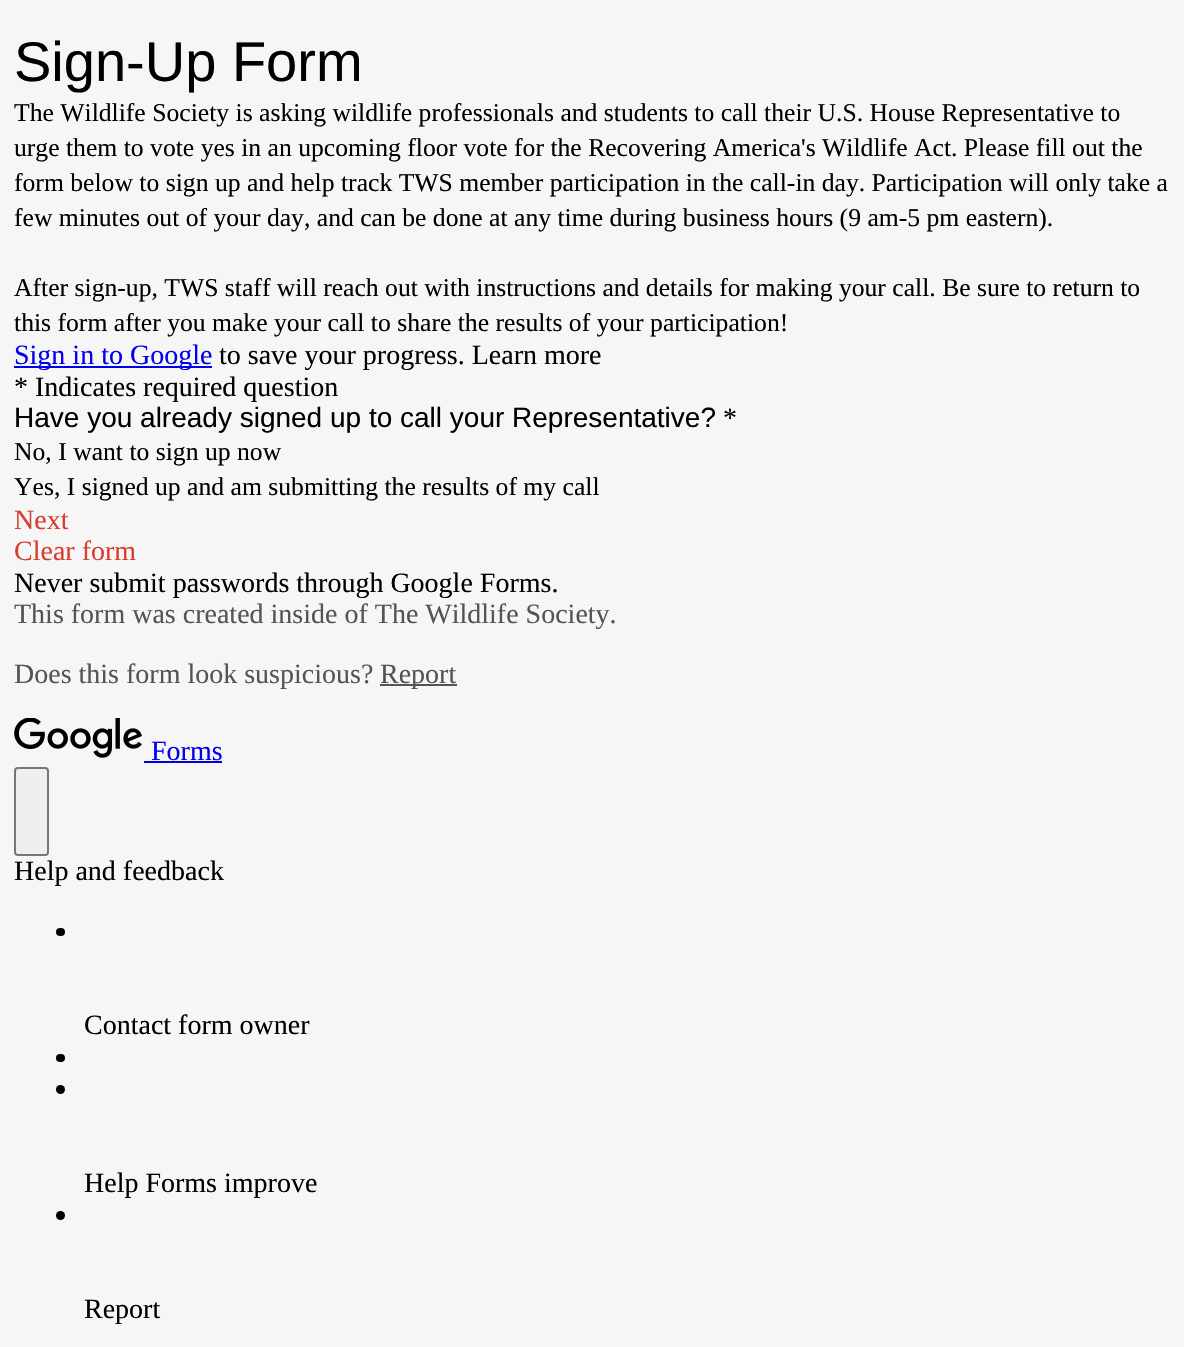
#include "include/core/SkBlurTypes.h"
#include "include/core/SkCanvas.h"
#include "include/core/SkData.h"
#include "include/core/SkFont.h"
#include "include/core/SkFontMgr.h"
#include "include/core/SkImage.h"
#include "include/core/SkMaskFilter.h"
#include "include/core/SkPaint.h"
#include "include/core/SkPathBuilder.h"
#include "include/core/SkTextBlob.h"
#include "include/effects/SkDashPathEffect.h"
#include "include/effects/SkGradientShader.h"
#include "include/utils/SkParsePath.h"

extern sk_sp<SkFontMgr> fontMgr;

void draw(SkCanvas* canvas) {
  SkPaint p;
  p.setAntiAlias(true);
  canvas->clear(SkColorSetRGB(246, 246, 246));
  p.setColor(SkColorSetRGB(0, 0, 238));
  canvas->drawRect(SkRect::MakeLTRB(14, 366, 212, 368), p);
  p.setColor(SkColorSetRGB(84, 84, 84));
  canvas->drawRect(SkRect::MakeLTRB(380, 684, 457, 686), p);
  canvas->drawImageRect(SkImages::DeferredFromEncodedData(SkData::MakeFromFileName("images/1.png")), SkRect::MakeLTRB(14, 718, 142, 758), SkSamplingOptions());
  p.setColor(SkColorSetRGB(0, 0, 238));
  canvas->drawRect(SkRect::MakeLTRB(144, 761, 222, 763), p);
  p.setColor(SkColorSetRGB(239, 239, 239));
  canvas->drawRoundRect(SkRect::MakeLTRB(15, 768, 48, 855), 3, 3, p);
  p.setStyle(SkPaint::kStroke_Style);
  p.setStrokeWidth(2);
  p.setColor(SkColorSetRGB(118, 118, 118));
  canvas->drawRoundRect(SkRect::MakeLTRB(15, 768, 48, 855), 3, 3, p);
  p.setStyle(SkPaint::kFill_Style);
  p.setColor(SK_ColorBLACK);
  canvas->drawRoundRect(SkRect::MakeLTRB(56, 928, 65, 936), 4, 4, p);
  canvas->drawRoundRect(SkRect::MakeLTRB(56, 1054, 65, 1062), 4, 4, p);
  canvas->drawCircle(60.5f, 1089.5f, 4.5f, p);
  canvas->drawCircle(60.5f, 1215.5f, 4.5f, p);
  SkFont font1(fontMgr->matchFamilyStyle("Liberation Sans", SkFontStyle::Normal()), 56);
  font1.setSubpixel(true);
  canvas->drawString("Sign-Up Form", 14, 81, font1, p);
  SkFont font2(fontMgr->matchFamilyStyle("Liberation Serif", SkFontStyle::Normal()), 25.65f);
  font2.setSubpixel(true);
  canvas->drawString("The Wildlife Society is asking wildlife professionals and students to call their U.S. House Representative to", 14, 121, font2, p);
  canvas->drawString("urge them to vote yes in an upcoming floor vote for the Recovering America's Wildlife Act. Please fill out the", 14, 156, font2, p);
  canvas->drawString("form below to sign up and help track TWS member participation in the call-in day. Participation will only take a", 14, 191, font2, p);
  canvas->drawString("few minutes out of your day, and can be done at any time during business hours (9 am-5 pm eastern).", 14, 226, font2, p);
  canvas->drawString("After sign-up, TWS staff will reach out with instructions and details for making your call. Be sure to return to", 14, 296, font2, p);
  canvas->drawString("this form after you make your call to share the results of your participation!", 14, 331, font2, p);
  SkFont font3(fontMgr->matchFamilyStyle("Liberation Serif", SkFontStyle::Normal()), 28);
  font3.setSubpixel(true);
  p.setColor(SkColorSetRGB(0, 0, 238));
  canvas->drawString("Sign in to Google", 14, 364, font3, p);
  p.setColor(SK_ColorBLACK);
  canvas->drawString("to save your progress. Learn more", 219, 364, font3, p);
  canvas->drawString("* Indicates required question", 14, 396, font3, p);
  SkFont font4(fontMgr->matchFamilyStyle("Liberation Sans", SkFontStyle::Normal()), 28);
  font4.setSubpixel(true);
  canvas->drawString("Have you already signed up to call your Representative?", 14, 427, font4, p);
  canvas->drawString("*", 723, 427, font3, p);
  canvas->drawString("No, I want to sign up now", 14, 460, font2, p);
  canvas->drawString("Yes, I signed up and am submitting the results of my call", 14, 495, font2, p);
  p.setColor(SkColorSetRGB(217, 61, 46));
  canvas->drawString("Next", 14, 529, font3, p);
  canvas->drawString("Clear form", 14, 560, font3, p);
  p.setColor(SK_ColorBLACK);
  canvas->drawString("Never submit passwords through Google Forms.", 14, 592, font3, p);
  p.setColor(SkColorSetRGB(84, 84, 84));
  canvas->drawString("This form was created inside of The Wildlife Society.", 14, 623, font3, p);
  canvas->drawString("Does this form look suspicious?", 14, 683, font3, p);
  canvas->drawString("Report", 380, 683, font3, p);
  p.setColor(SkColorSetRGB(0, 0, 238));
  canvas->drawString("Forms", 151, 760, font3, p);
  p.setColor(SK_ColorBLACK);
  canvas->drawString("Help and feedback", 14, 880, font3, p);
  canvas->drawString("Contact form owner", 84, 1034, font3, p);
  canvas->drawString("Help Forms improve", 84, 1192, font3, p);
  canvas->drawString("Report", 84, 1318, font3, p);
}
